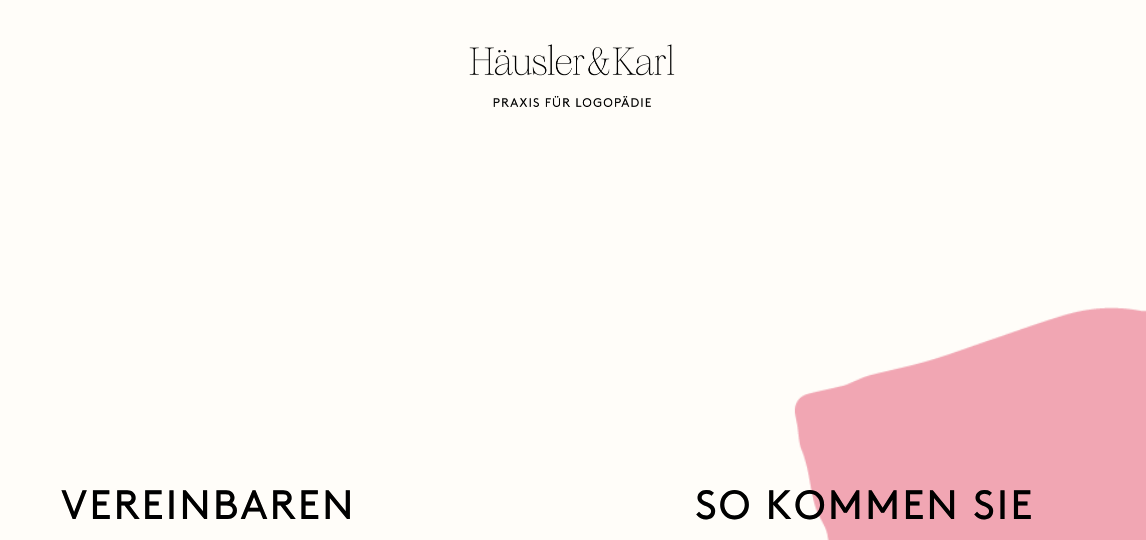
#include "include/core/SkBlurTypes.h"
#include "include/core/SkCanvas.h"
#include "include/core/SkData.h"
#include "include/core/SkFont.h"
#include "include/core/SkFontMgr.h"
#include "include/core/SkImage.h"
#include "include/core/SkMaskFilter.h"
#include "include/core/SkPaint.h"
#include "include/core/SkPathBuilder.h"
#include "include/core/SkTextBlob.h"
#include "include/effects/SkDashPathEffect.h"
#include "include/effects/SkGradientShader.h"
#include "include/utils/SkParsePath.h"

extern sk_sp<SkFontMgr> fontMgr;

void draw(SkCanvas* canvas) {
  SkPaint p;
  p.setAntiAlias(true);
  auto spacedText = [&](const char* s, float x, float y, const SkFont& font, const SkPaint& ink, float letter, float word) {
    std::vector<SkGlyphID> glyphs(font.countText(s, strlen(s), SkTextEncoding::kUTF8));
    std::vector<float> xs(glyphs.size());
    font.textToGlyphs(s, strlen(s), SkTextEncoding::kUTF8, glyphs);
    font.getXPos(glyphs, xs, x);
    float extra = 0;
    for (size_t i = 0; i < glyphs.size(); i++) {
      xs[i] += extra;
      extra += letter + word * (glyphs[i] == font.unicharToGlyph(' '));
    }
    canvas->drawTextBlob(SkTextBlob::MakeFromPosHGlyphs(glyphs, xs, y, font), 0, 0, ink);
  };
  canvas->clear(SkColorSetRGB(255, 253, 249));
  canvas->drawImageRect(SkImages::DeferredFromEncodedData(SkData::MakeFromFileName("images/1.png")), SkRect::MakeLTRB(469, 44, 675, 107), SkSamplingOptions());
  canvas->drawImageRect(SkImages::DeferredFromEncodedData(SkData::MakeFromFileName("images/2.png")), SkRect::MakeLTRB(794, 307, 1146, 540), SkSamplingOptions());
  SkFont font1(fontMgr->matchFamilyStyle("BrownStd", SkFontStyle::Normal()), 41);
  font1.setSubpixel(true);
  p.setColor(SK_ColorBLACK);
  spacedText("VEREINBAREN", 61, 519, font1, p, 2, 0);
  spacedText("SO KOMMEN SIE", 695, 519, font1, p, 2, 0);
}
